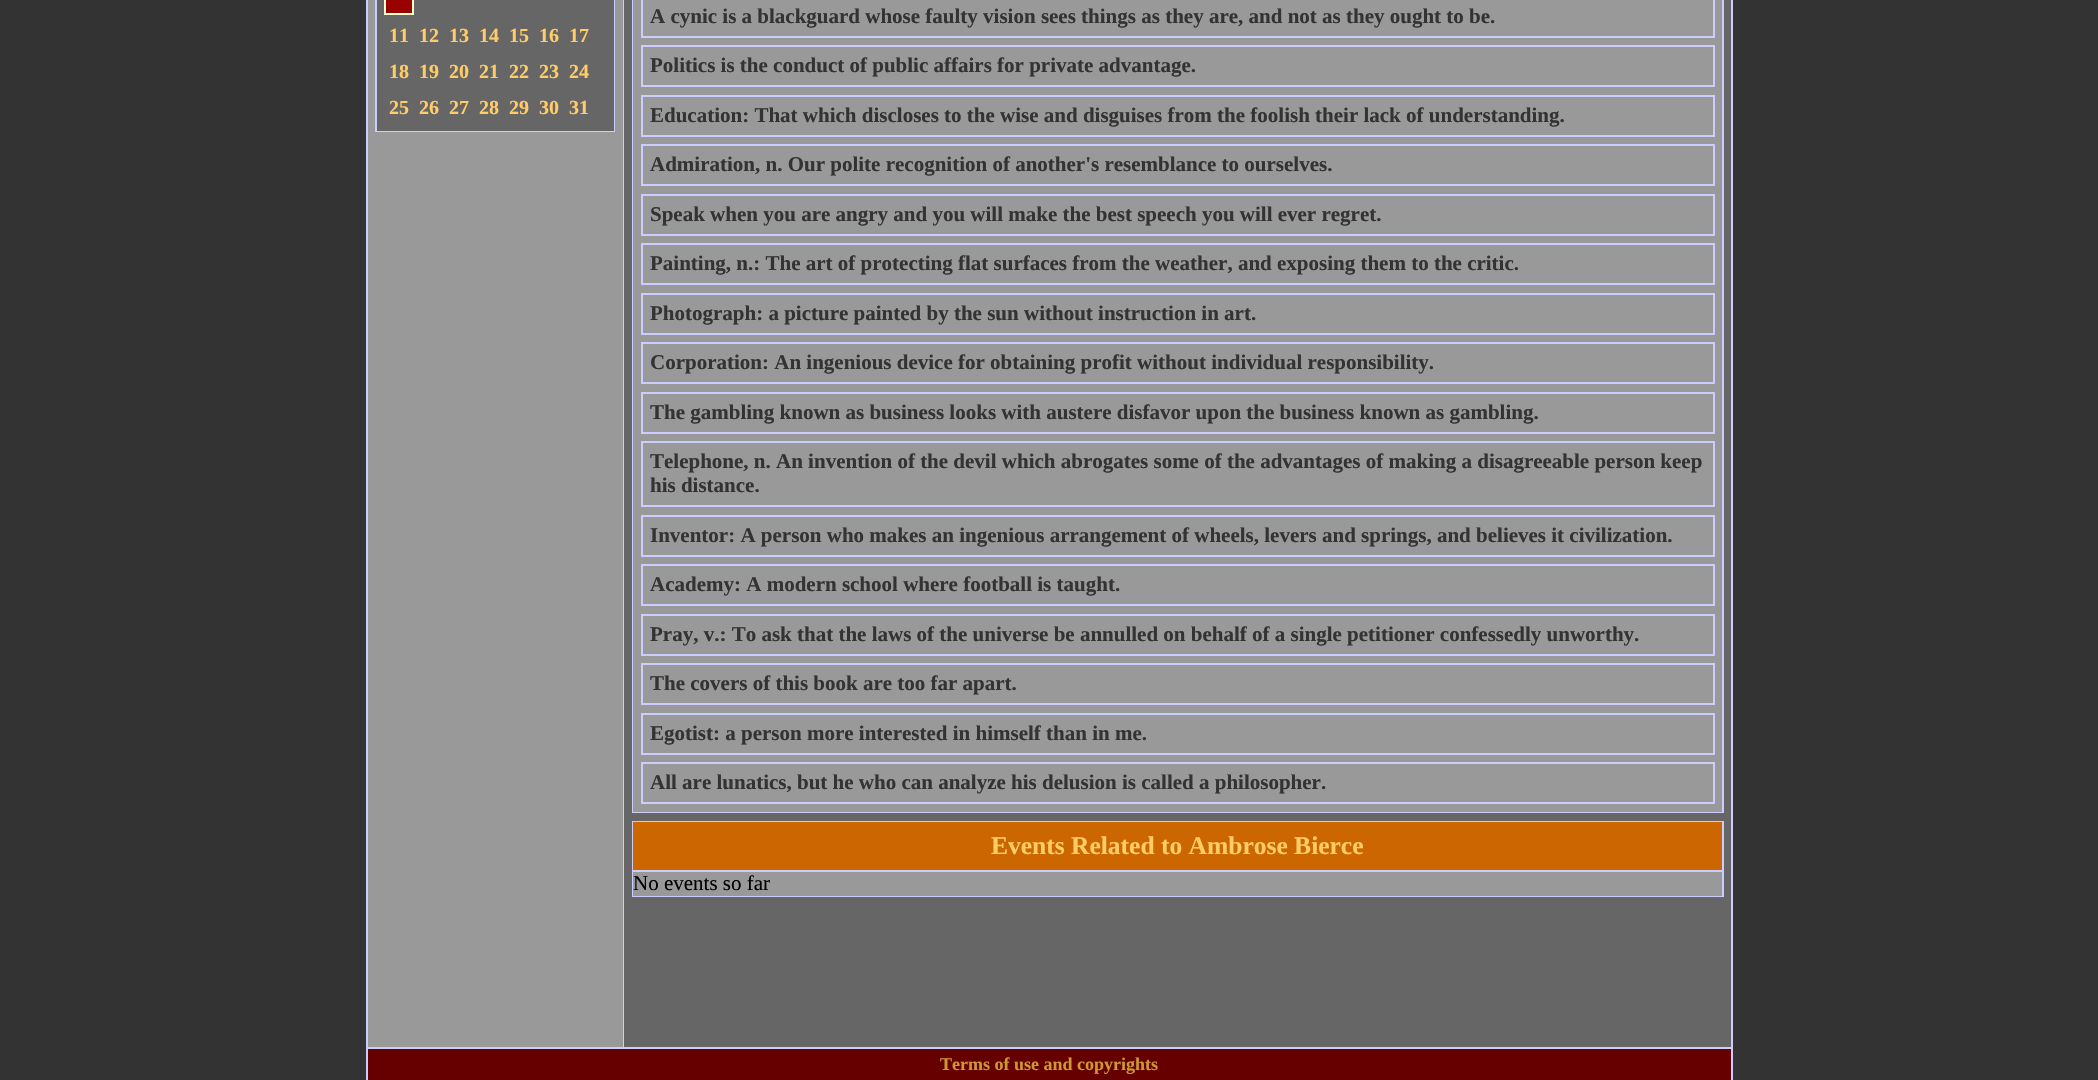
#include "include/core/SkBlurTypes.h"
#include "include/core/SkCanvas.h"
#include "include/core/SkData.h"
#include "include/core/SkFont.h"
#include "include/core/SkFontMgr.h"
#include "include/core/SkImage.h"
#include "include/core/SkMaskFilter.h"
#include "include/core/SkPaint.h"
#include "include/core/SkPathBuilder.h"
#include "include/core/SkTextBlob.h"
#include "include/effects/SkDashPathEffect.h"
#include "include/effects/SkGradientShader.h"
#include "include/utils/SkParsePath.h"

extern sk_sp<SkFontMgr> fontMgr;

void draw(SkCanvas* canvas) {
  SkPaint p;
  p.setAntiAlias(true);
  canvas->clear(SkColorSetRGB(51, 51, 51));
  p.setColor(SkColorSetRGB(204, 204, 255));
  canvas->drawRect(SkRect::MakeLTRB(1731, 0, 1733, 1080), p);
  canvas->drawRect(SkRect::MakeLTRB(366, 0, 368, 1080), p);
  p.setColor(SkColorSetRGB(153, 153, 153));
  canvas->drawRect(SkRect::MakeLTRB(368, 0, 623, 1047), p);
  p.setColor(SkColorSetRGB(204, 204, 255));
  canvas->drawRect(SkRect::MakeLTRB(623, 0, 624, 1047), p);
  p.setStyle(SkPaint::kStroke_Style);
  p.setStrokeWidth(2);
  canvas->drawRect(SkRect::MakeLTRB(376, -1, 614, 131), p);
  p.setStyle(SkPaint::kFill_Style);
  p.setColor(SkColorSetRGB(102, 102, 102));
  canvas->drawRect(SkRect::MakeLTRB(377, 0, 614, 131), p);
  p.setColor(SkColorSetRGB(153, 0, 0));
  canvas->drawRect(SkRect::MakeLTRB(385, -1, 413, 14), p);
  p.setStyle(SkPaint::kStroke_Style);
  p.setColor(SkColorSetRGB(255, 255, 204));
  canvas->drawRect(SkRect::MakeLTRB(385, -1, 413, 14), p);
  p.setStyle(SkPaint::kFill_Style);
  p.setColor(SkColorSetRGB(102, 102, 102));
  canvas->drawRect(SkRect::MakeLTRB(624, 0, 1731, 1047), p);
  p.setStyle(SkPaint::kStroke_Style);
  p.setColor(SkColorSetRGB(204, 204, 255));
  canvas->drawRect(SkRect::MakeLTRB(633, -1, 1723, 812), p);
  p.setStyle(SkPaint::kFill_Style);
  p.setColor(SkColorSetRGB(153, 153, 153));
  canvas->drawRect(SkRect::MakeLTRB(633, 0, 1722, 812), p);
  p.setStyle(SkPaint::kStroke_Style);
  p.setColor(SkColorSetRGB(204, 204, 255));
  canvas->drawRect(SkRect::MakeLTRB(642, -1, 1714, 37), p);
  canvas->drawRect(SkRect::MakeLTRB(642, 46, 1714, 86), p);
  canvas->drawRect(SkRect::MakeLTRB(642, 96, 1714, 136), p);
  canvas->drawRect(SkRect::MakeLTRB(642, 145, 1714, 185), p);
  canvas->drawRect(SkRect::MakeLTRB(642, 195, 1714, 235), p);
  canvas->drawRect(SkRect::MakeLTRB(642, 244, 1714, 284), p);
  canvas->drawRect(SkRect::MakeLTRB(642, 294, 1714, 334), p);
  canvas->drawRect(SkRect::MakeLTRB(642, 343, 1714, 383), p);
  canvas->drawRect(SkRect::MakeLTRB(642, 393, 1714, 433), p);
  canvas->drawRect(SkRect::MakeLTRB(642, 442, 1714, 506), p);
  canvas->drawRect(SkRect::MakeLTRB(642, 516, 1714, 556), p);
  canvas->drawRect(SkRect::MakeLTRB(642, 565, 1714, 605), p);
  canvas->drawRect(SkRect::MakeLTRB(642, 615, 1714, 655), p);
  canvas->drawRect(SkRect::MakeLTRB(642, 664, 1714, 704), p);
  canvas->drawRect(SkRect::MakeLTRB(642, 714, 1714, 754), p);
  canvas->drawRect(SkRect::MakeLTRB(642, 763, 1714, 803), p);
  canvas->drawRect(SkRect::MakeLTRB(633, 822, 1723, 896), p);
  p.setStyle(SkPaint::kFill_Style);
  p.setColor(SkColorSetRGB(204, 102, 0));
  canvas->drawRect(SkRect::MakeLTRB(633, 822, 1722, 870), p);
  p.setColor(SkColorSetRGB(204, 204, 255));
  canvas->drawRect(SkRect::MakeLTRB(633, 870, 1722, 872), p);
  p.setColor(SkColorSetRGB(153, 153, 153));
  canvas->drawRect(SkRect::MakeLTRB(633, 872, 1722, 896), p);
  p.setColor(SkColorSetRGB(102, 0, 0));
  canvas->drawRect(SkRect::MakeLTRB(368, 1049, 1731, 1080), p);
  p.setColor(SkColorSetRGB(204, 204, 255));
  canvas->drawRect(SkRect::MakeLTRB(368, 1047, 1731, 1049), p);
  SkFont font1(fontMgr->matchFamilyStyle("Liberation Serif", SkFontStyle::Bold()), 20);
  font1.setSubpixel(true);
  p.setColor(SkColorSetRGB(255, 204, 102));
  canvas->drawString("11", 389, 42, font1, p);
  canvas->drawString("12", 419, 42, font1, p);
  canvas->drawString("13", 449, 42, font1, p);
  canvas->drawString("14", 479, 42, font1, p);
  canvas->drawString("15", 509, 42, font1, p);
  canvas->drawString("16", 539, 42, font1, p);
  canvas->drawString("17", 569, 42, font1, p);
  canvas->drawString("18", 389, 78, font1, p);
  canvas->drawString("19", 419, 78, font1, p);
  canvas->drawString("20", 449, 78, font1, p);
  canvas->drawString("21", 479, 78, font1, p);
  canvas->drawString("22", 509, 78, font1, p);
  canvas->drawString("23", 539, 78, font1, p);
  canvas->drawString("24", 569, 78, font1, p);
  canvas->drawString("25", 389, 114, font1, p);
  canvas->drawString("26", 419, 114, font1, p);
  canvas->drawString("27", 449, 114, font1, p);
  canvas->drawString("28", 479, 114, font1, p);
  canvas->drawString("29", 509, 114, font1, p);
  canvas->drawString("30", 539, 114, font1, p);
  canvas->drawString("31", 569, 114, font1, p);
  SkFont font2(fontMgr->matchFamilyStyle("Liberation Serif", SkFontStyle::Bold()), 21);
  font2.setSubpixel(true);
  p.setColor(SkColorSetRGB(51, 51, 51));
  canvas->drawString("A cynic is a blackguard whose faulty vision sees things as they are, and not as they ought to be.", 650, 23, font2, p);
  canvas->drawString("Politics is the conduct of public affairs for private advantage.", 650, 72, font2, p);
  canvas->drawString("Education: That which discloses to the wise and disguises from the foolish their lack of understanding.", 650, 122, font2, p);
  canvas->drawString("Admiration, n. Our polite recognition of another's resemblance to ourselves.", 650, 171, font2, p);
  canvas->drawString("Speak when you are angry and you will make the best speech you will ever regret.", 650, 221, font2, p);
  canvas->drawString("Painting, n.: The art of protecting flat surfaces from the weather, and exposing them to the critic.", 650, 270, font2, p);
  canvas->drawString("Photograph: a picture painted by the sun without instruction in art.", 650, 320, font2, p);
  canvas->drawString("Corporation: An ingenious device for obtaining profit without individual responsibility.", 650, 369, font2, p);
  canvas->drawString("The gambling known as business looks with austere disfavor upon the business known as gambling.", 650, 419, font2, p);
  canvas->drawString("Telephone, n. An invention of the devil which abrogates some of the advantages of making a disagreeable person keep", 650, 468, font2, p);
  canvas->drawString("his distance.", 650, 492, font2, p);
  canvas->drawString("Inventor: A person who makes an ingenious arrangement of wheels, levers and springs, and believes it civilization.", 650, 542, font2, p);
  canvas->drawString("Academy: A modern school where football is taught.", 650, 591, font2, p);
  canvas->drawString("Pray, v.: To ask that the laws of the universe be annulled on behalf of a single petitioner confessedly unworthy.", 650, 641, font2, p);
  canvas->drawString("The covers of this book are too far apart.", 650, 690, font2, p);
  canvas->drawString("Egotist: a person more interested in himself than in me.", 650, 740, font2, p);
  canvas->drawString("All are lunatics, but he who can analyze his delusion is called a philosopher.", 650, 789, font2, p);
  SkFont font3(fontMgr->matchFamilyStyle("Liberation Serif", SkFontStyle::Bold()), 25.5f);
  font3.setSubpixel(true);
  p.setColor(SkColorSetRGB(255, 204, 102));
  canvas->drawString("Events Related to Ambrose Bierce", 991, 854, font3, p);
  SkFont font4(fontMgr->matchFamilyStyle("Liberation Serif", SkFontStyle::Normal()), 21);
  font4.setSubpixel(true);
  p.setColor(SK_ColorBLACK);
  canvas->drawString("No events so far", 633, 890, font4, p);
  SkFont font5(fontMgr->matchFamilyStyle("Liberation Serif", SkFontStyle::Bold()), 18);
  font5.setSubpixel(true);
  p.setColor(SkColorSetRGB(204, 153, 51));
  canvas->drawString("Terms of use and copyrights", 940, 1070, font5, p);
}
